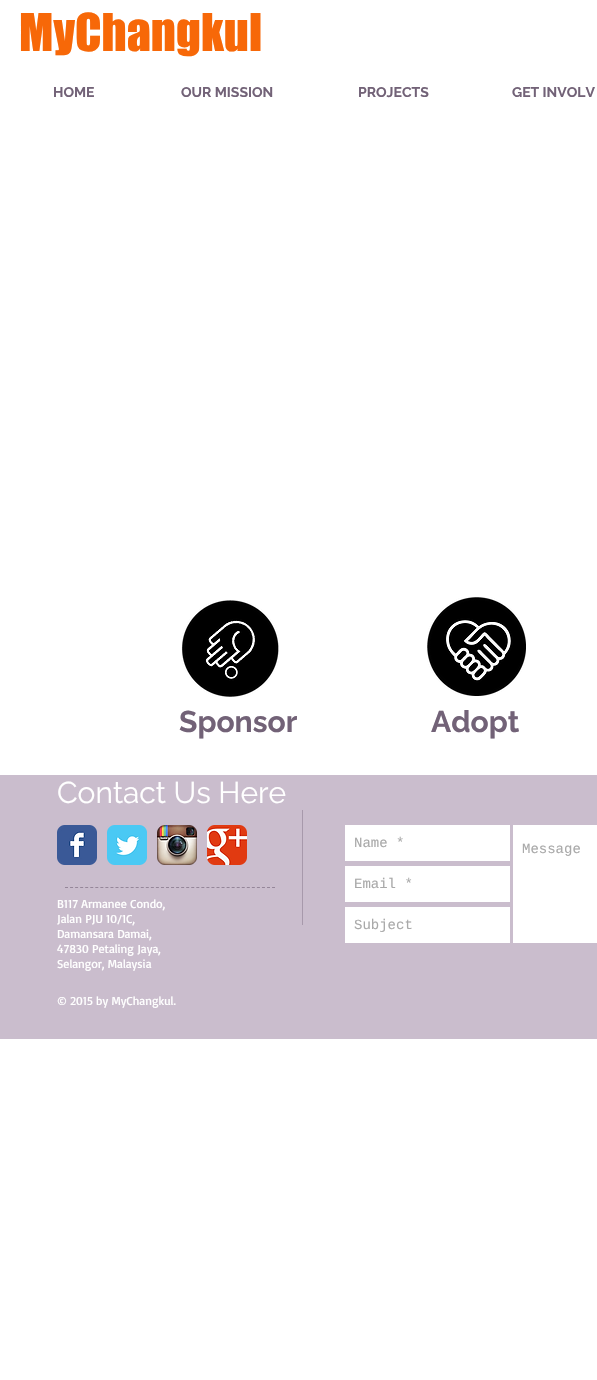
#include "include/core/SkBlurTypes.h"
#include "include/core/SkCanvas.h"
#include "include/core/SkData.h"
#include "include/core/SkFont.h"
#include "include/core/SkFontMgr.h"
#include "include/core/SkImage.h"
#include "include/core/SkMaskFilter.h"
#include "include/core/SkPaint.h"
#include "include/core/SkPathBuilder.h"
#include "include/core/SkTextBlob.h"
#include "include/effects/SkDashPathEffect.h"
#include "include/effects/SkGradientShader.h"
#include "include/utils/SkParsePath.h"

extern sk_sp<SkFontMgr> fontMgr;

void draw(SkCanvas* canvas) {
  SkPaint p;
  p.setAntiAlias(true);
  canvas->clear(SK_ColorWHITE);
  canvas->drawImageRect(SkImages::DeferredFromEncodedData(SkData::MakeFromFileName("images/1.png")), SkRect::MakeLTRB(181, 600, 279, 697), SkSamplingOptions());
  canvas->drawImageRect(SkImages::DeferredFromEncodedData(SkData::MakeFromFileName("images/2.png")), SkRect::MakeLTRB(427, 597, 526, 696), SkSamplingOptions());
  p.setColor(SkColorSetRGB(202, 189, 205));
  canvas->drawRect(SkRect::MakeLTRB(0, 775, 597, 1039), p);
  canvas->drawImageRect(SkImages::DeferredFromEncodedData(SkData::MakeFromFileName("images/3.png")), SkRect::MakeLTRB(57, 825, 97, 865), SkSamplingOptions());
  canvas->drawImageRect(SkImages::DeferredFromEncodedData(SkData::MakeFromFileName("images/4.png")), SkRect::MakeLTRB(107, 825, 147, 865), SkSamplingOptions());
  canvas->drawImageRect(SkImages::DeferredFromEncodedData(SkData::MakeFromFileName("images/5.png")), SkRect::MakeLTRB(157, 825, 197, 865), SkSamplingOptions());
  canvas->drawImageRect(SkImages::DeferredFromEncodedData(SkData::MakeFromFileName("images/6.png")), SkRect::MakeLTRB(207, 825, 247, 865), SkSamplingOptions());
  p.setColor(SkColorSetRGB(167, 153, 171));
  canvas->drawRect(SkRect::MakeLTRB(302, 810, 303, 925), p);
  p.setColor(SK_ColorWHITE);
  canvas->drawRect(SkRect::MakeLTRB(345, 825, 510, 861), p);
  canvas->drawRect(SkRect::MakeLTRB(513, 825, 597, 943), p);
  canvas->drawRect(SkRect::MakeLTRB(345, 866, 510, 902), p);
  canvas->drawRect(SkRect::MakeLTRB(345, 907, 510, 943), p);
  p.setStyle(SkPaint::kStroke_Style);
  p.setStrokeWidth(1);
  p.setColor(SkColorSetRGB(149, 134, 153));
  p.setPathEffect(SkDashPathEffect::Make({{3, 2.05f}}, 0));
  canvas->drawPath(SkPathBuilder().moveTo(65, 887.5f).lineTo(275, 887.5f).detach(), p);
  p.setPathEffect(nullptr);
  SkFont font1(fontMgr->matchFamilyStyle("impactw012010", SkFontStyle::Normal()), 48);
  font1.setSubpixel(true);
  p.setStyle(SkPaint::kFill_Style);
  p.setColor(SkColorSetRGB(247, 104, 8));
  canvas->drawString("MyChangkul", 19, 51, font1, p);
  SkFont font2(fontMgr->matchFamilyStyle("Raleway", SkFontStyle::Bold()), 14);
  font2.setSubpixel(true);
  p.setColor(SkColorSetRGB(114, 98, 119));
  canvas->drawString("HOME", 53, 97, font2, p);
  canvas->drawString("OUR MISSION", 181, 97, font2, p);
  canvas->drawString("PROJECTS", 358, 97, font2, p);
  canvas->drawString("GET INVOLV", 512, 97, font2, p);
  SkFont font3(fontMgr->matchFamilyStyle("Raleway", SkFontStyle::Bold()), 30);
  font3.setSubpixel(true);
  canvas->drawString("Sponsor", 179, 732, font3, p);
  canvas->drawString("Adopt", 431, 732, font3, p);
  SkFont font4(fontMgr->matchFamilyStyle("Raleway", SkFontStyle::Normal()), 30);
  font4.setSubpixel(true);
  p.setColor(SK_ColorWHITE);
  canvas->drawString("Contact Us Here", 57, 803, font4, p);
  SkFont font5(fontMgr->matchFamilyStyle("Liberation Mono", SkFontStyle::Normal()), 14);
  font5.setSubpixel(true);
  p.setColor(SkColorSetRGB(169, 169, 169));
  canvas->drawString("Name *", 354, 847, font5, p);
  canvas->drawString("Message", 522, 853, font5, p);
  canvas->drawString("Email *", 354, 888, font5, p);
  canvas->drawString("Subject", 354, 929, font5, p);
  SkFont font6(fontMgr->matchFamilyStyle("Basic", SkFontStyle::Normal()), 12);
  font6.setSubpixel(true);
  p.setColor(SK_ColorWHITE);
  canvas->drawString("B117 Armanee Condo,", 57, 908, font6, p);
  canvas->drawString("Jalan PJU 10/1C,", 57, 923, font6, p);
  canvas->drawString("Damansara Damai,", 57, 938, font6, p);
  canvas->drawString("47830 Petaling Jaya,", 57, 953, font6, p);
  canvas->drawString("Selangor, Malaysia", 57, 968, font6, p);
  canvas->drawString("© 2015 by MyChangkul.", 57, 1005, font6, p);
}
